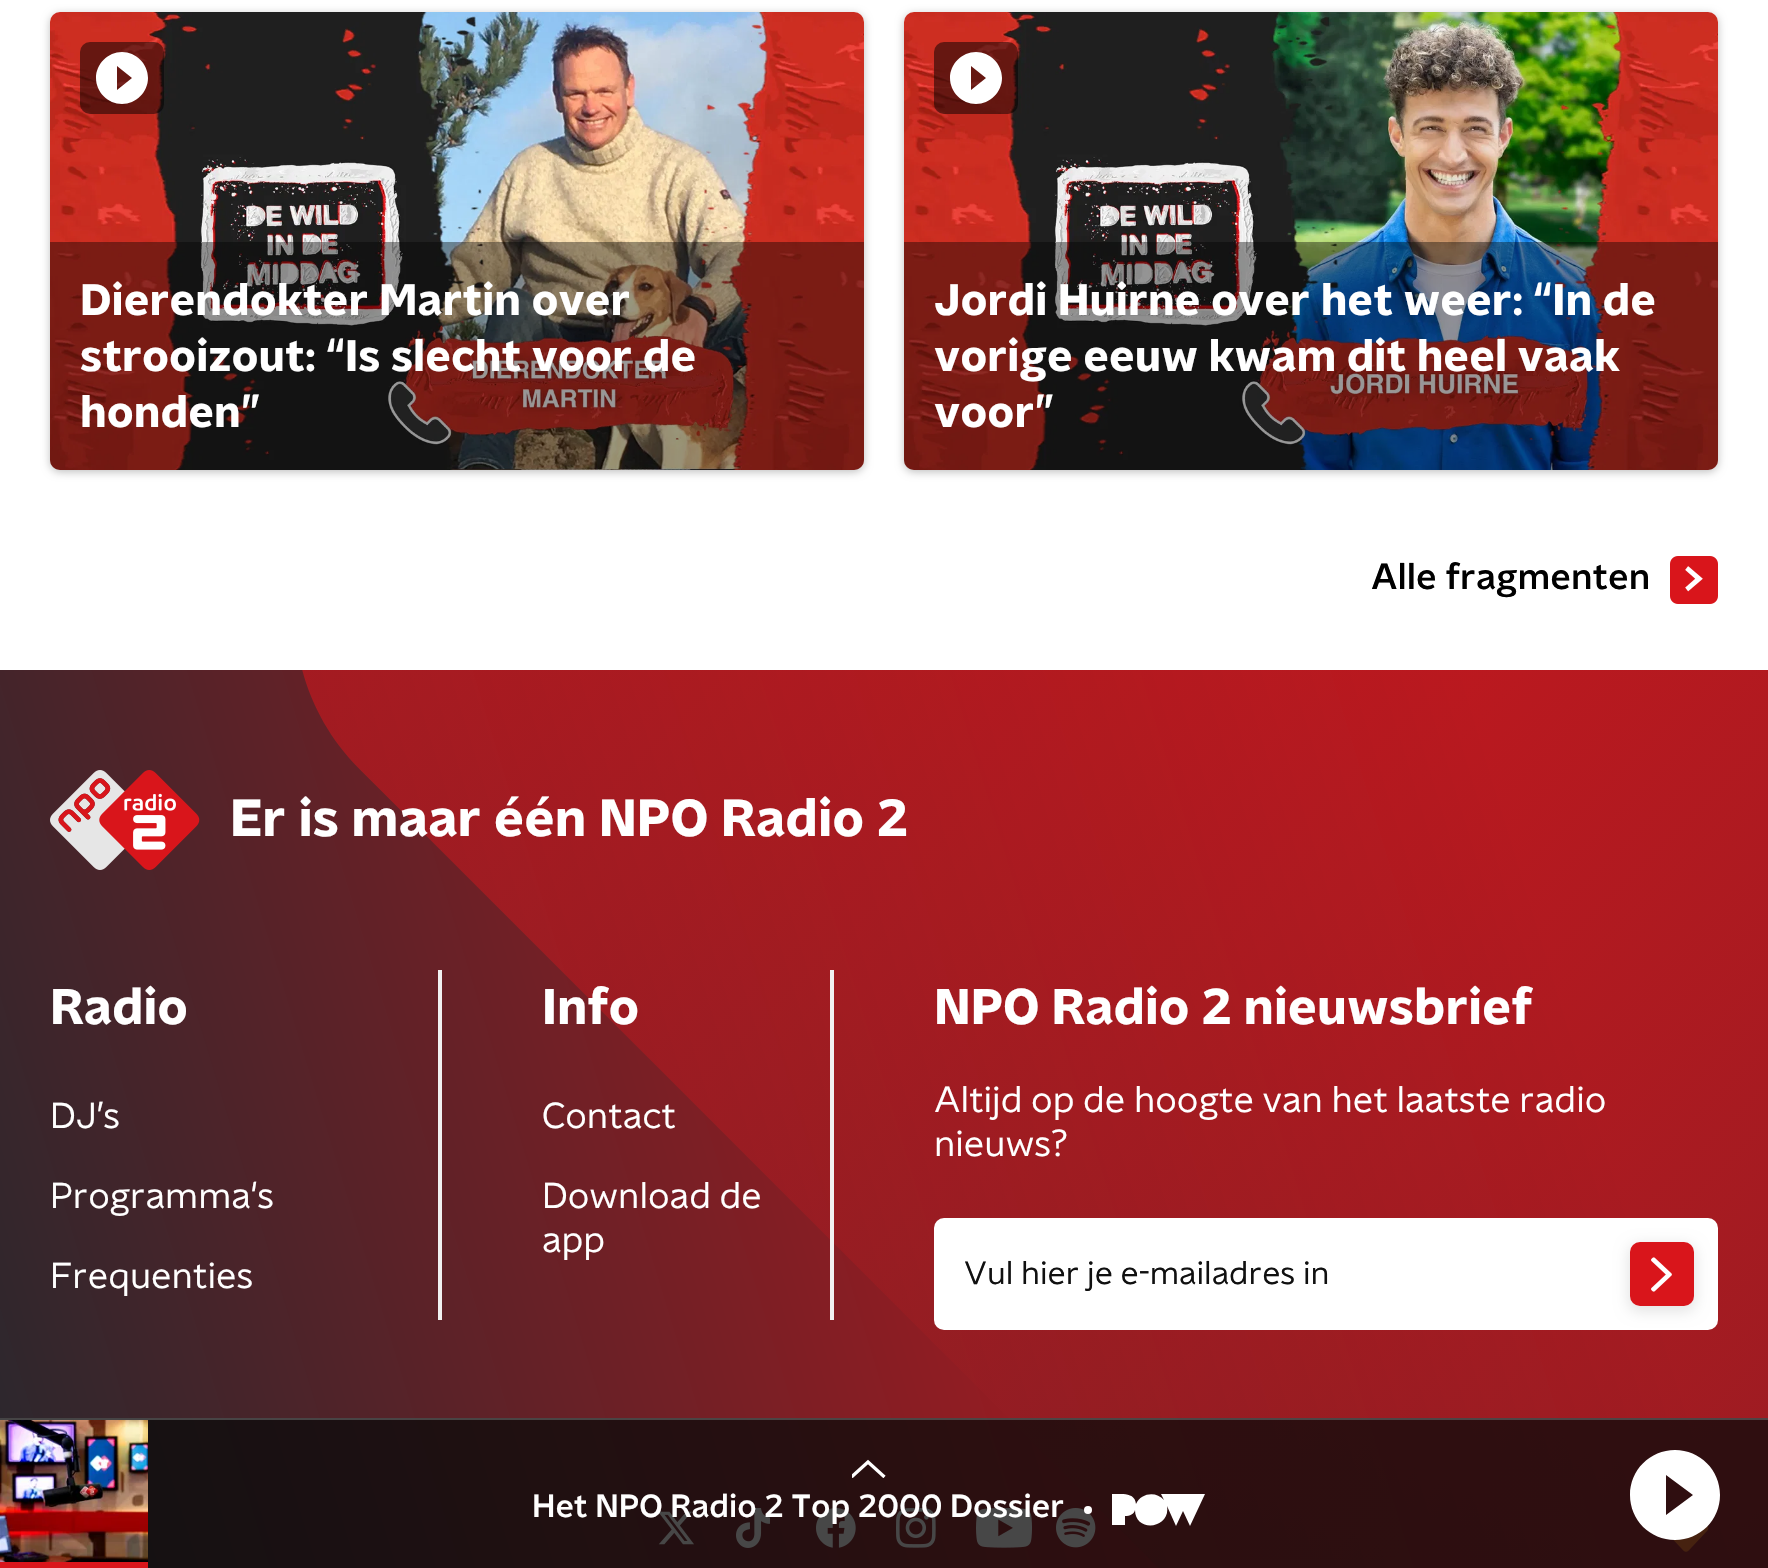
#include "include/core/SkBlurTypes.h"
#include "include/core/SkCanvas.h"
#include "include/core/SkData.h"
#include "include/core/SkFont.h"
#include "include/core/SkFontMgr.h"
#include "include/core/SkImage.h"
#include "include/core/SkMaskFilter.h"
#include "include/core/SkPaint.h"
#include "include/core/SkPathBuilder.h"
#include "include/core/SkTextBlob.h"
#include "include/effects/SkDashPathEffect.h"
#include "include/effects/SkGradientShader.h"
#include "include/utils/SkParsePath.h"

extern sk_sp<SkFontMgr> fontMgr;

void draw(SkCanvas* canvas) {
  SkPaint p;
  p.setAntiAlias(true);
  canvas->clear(SK_ColorWHITE);
  p.setColor(SkColorSetARGB(64, 0, 0, 0));
  p.setMaskFilter(SkMaskFilter::MakeBlur(kNormal_SkBlurStyle, 4));
  canvas->drawRoundRect(SkRect::MakeLTRB(50, 14, 864, 472), 10, 10, p);
  p.setMaskFilter(nullptr);
  p.setColor(SK_ColorWHITE);
  canvas->drawRoundRect(SkRect::MakeLTRB(50, 12, 864, 470), 10, 10, p);
  canvas->drawImageRect(SkImages::DeferredFromEncodedData(SkData::MakeFromFileName("images/1.png")), SkRect::MakeLTRB(50, 12, 864, 470), SkSamplingOptions());
  p.setColor(SkColorSetARGB(128, 0, 0, 0));
  canvas->drawRoundRect(SkRect::MakeLTRB(80, 42, 164, 114), 10, 10, p);
  p.setColor(SK_ColorWHITE);
  canvas->drawPath(SkPathBuilder().moveTo(122, 52).cubicTo(108, 52, 96, 64, 96, 78).cubicTo(96, 92, 108, 104, 122, 104).cubicTo(136, 104, 148, 92, 148, 78).cubicTo(148, 64, 136, 52, 122, 52).close().moveTo(117, 90).lineTo(117, 66).lineTo(132, 78).close().detach(), p);
  p.setColor(SkColorSetARGB(102, 0, 0, 0));
  canvas->drawPath(SkPathBuilder().moveTo(50, 242).lineTo(864, 242).lineTo(864, 460).cubicTo(864, 465.5f, 859.5f, 470, 854, 470).lineTo(60, 470).cubicTo(54.5f, 470, 50, 465.5f, 50, 460).close().detach(), p);
  p.setColor(SkColorSetARGB(64, 0, 0, 0));
  p.setMaskFilter(SkMaskFilter::MakeBlur(kNormal_SkBlurStyle, 4));
  canvas->drawRoundRect(SkRect::MakeLTRB(904, 14, 1718, 472), 10, 10, p);
  p.setMaskFilter(nullptr);
  p.setColor(SK_ColorWHITE);
  canvas->drawRoundRect(SkRect::MakeLTRB(904, 12, 1718, 470), 10, 10, p);
  canvas->drawImageRect(SkImages::DeferredFromEncodedData(SkData::MakeFromFileName("images/2.png")), SkRect::MakeLTRB(904, 12, 1718, 470), SkSamplingOptions());
  p.setColor(SkColorSetARGB(128, 0, 0, 0));
  canvas->drawRoundRect(SkRect::MakeLTRB(934, 42, 1018, 114), 10, 10, p);
  p.setColor(SK_ColorWHITE);
  canvas->drawPath(SkPathBuilder().moveTo(976, 52).cubicTo(962, 52, 950, 64, 950, 78).cubicTo(950, 92, 962, 104, 976, 104).cubicTo(990, 104, 1002, 92, 1002, 78).cubicTo(1002, 64, 990, 52, 976, 52).close().moveTo(971, 90).lineTo(971, 66).lineTo(986, 78).close().detach(), p);
  p.setColor(SkColorSetARGB(102, 0, 0, 0));
  canvas->drawPath(SkPathBuilder().moveTo(904, 242).lineTo(1718, 242).lineTo(1718, 460).cubicTo(1718, 465.5f, 1713.5f, 470, 1708, 470).lineTo(914, 470).cubicTo(908.5f, 470, 904, 465.5f, 904, 460).close().detach(), p);
  canvas->drawImageRect(SkImages::DeferredFromEncodedData(SkData::MakeFromFileName("images/3.png")), SkRect::MakeLTRB(1670, 556, 1718, 604), SkSamplingOptions());
  {
    const SkColor colors[] = {SkColorSetRGB(217, 21, 27), SkColorSetRGB(34, 40, 46)};
    const float stops[] = {0.14f, 1};
    const SkPoint ends[] = {{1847, 929}, {-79, 1517}};
    p.setShader(SkGradientShader::MakeLinear(ends, colors, stops, 2, SkTileMode::kClamp));
    p.setAlpha(255);
  }
  canvas->drawRect(SkRect::MakeLTRB(0, 670, 1768, 1568), p);
  canvas->drawImageRect(SkImages::DeferredFromEncodedData(SkData::MakeFromFileName("images/4.png")), SkRect::MakeLTRB(302, 670, 1768, 1568), SkSamplingOptions());
  canvas->drawImageRect(SkImages::DeferredFromEncodedData(SkData::MakeFromFileName("images/5.png")), SkRect::MakeLTRB(50, 770, 200, 870), SkSamplingOptions());
  p.setShader(nullptr);
  p.setColor(SkColorSetRGB(241, 241, 241));
  canvas->drawRect(SkRect::MakeLTRB(438, 970, 442, 1320), p);
  canvas->drawRect(SkRect::MakeLTRB(830, 970, 834, 1320), p);
  p.setColor(SK_ColorWHITE);
  canvas->drawRoundRect(SkRect::MakeLTRB(934, 1218, 1718, 1330), 10, 10, p);
  p.setColor(SkColorSetARGB(26, 0, 0, 0));
  p.setMaskFilter(SkMaskFilter::MakeBlur(kNormal_SkBlurStyle, 7));
  canvas->drawRoundRect(SkRect::MakeLTRB(1628, 1244, 1696, 1312), 12, 12, p);
  p.setMaskFilter(nullptr);
  p.setColor(SkColorSetRGB(217, 21, 27));
  canvas->drawRoundRect(SkRect::MakeLTRB(1630, 1242, 1694, 1306), 10, 10, p);
  canvas->drawImageRect(SkImages::DeferredFromEncodedData(SkData::MakeFromFileName("images/6.png")), SkRect::MakeLTRB(1651, 1257, 1672, 1292), SkSamplingOptions());
  canvas->drawImageRect(SkImages::DeferredFromEncodedData(SkData::MakeFromFileName("images/7.png")), SkRect::MakeLTRB(658, 1511, 694, 1545), SkSamplingOptions());
  canvas->drawImageRect(SkImages::DeferredFromEncodedData(SkData::MakeFromFileName("images/8.png")), SkRect::MakeLTRB(736, 1508, 770, 1548), SkSamplingOptions());
  canvas->drawImageRect(SkImages::DeferredFromEncodedData(SkData::MakeFromFileName("images/9.png")), SkRect::MakeLTRB(816, 1508, 856, 1548), SkSamplingOptions());
  canvas->drawImageRect(SkImages::DeferredFromEncodedData(SkData::MakeFromFileName("images/10.png")), SkRect::MakeLTRB(896, 1508, 936, 1548), SkSamplingOptions());
  canvas->drawImageRect(SkImages::DeferredFromEncodedData(SkData::MakeFromFileName("images/11.png")), SkRect::MakeLTRB(976, 1508, 1032, 1548), SkSamplingOptions());
  canvas->drawImageRect(SkImages::DeferredFromEncodedData(SkData::MakeFromFileName("images/12.png")), SkRect::MakeLTRB(1056, 1508, 1096, 1548), SkSamplingOptions());
  canvas->drawImageRect(SkImages::DeferredFromEncodedData(SkData::MakeFromFileName("images/13.png")), SkRect::MakeLTRB(1672, 1525, 1709, 1552), SkSamplingOptions());
  p.setColor(SkColorSetARGB(191, 9, 9, 9));
  canvas->drawRect(SkRect::MakeLTRB(0, 1418, 1768, 1568), p);
  p.setColor(SkColorSetARGB(166, 95, 95, 95));
  canvas->drawRect(SkRect::MakeLTRB(0, 1418, 1768, 1420), p);
  canvas->drawImageRect(SkImages::DeferredFromEncodedData(SkData::MakeFromFileName("images/14.png")), SkRect::MakeLTRB(0, 1420, 148, 1562), SkSamplingOptions());
  p.setColor(SkColorSetRGB(217, 21, 27));
  canvas->drawRect(SkRect::MakeLTRB(0, 1562, 148, 1568), p);
  canvas->save();
  canvas->clipRect(SkRect::MakeLTRB(852, 1458, 888, 1478));
  p.setStyle(SkPaint::kStroke_Style);
  p.setStrokeWidth(3.3f);
  p.setColor(SK_ColorWHITE);
  canvas->drawPath(SkPathBuilder().moveTo(884.5f, 1477).lineTo(868, 1462).lineTo(851.5f, 1477).detach(), p);
  canvas->restore();
  p.setStyle(SkPaint::kFill_Style);
  canvas->drawCircle(1088, 1510, 4, p);
  canvas->save();
  canvas->clipRect(SkRect::MakeLTRB(1112, 1494, 1206, 1526));
  canvas->drawPath(SkPathBuilder().moveTo(1161, 1494).lineTo(1164, 1500).cubicTo(1156, 1491, 1141, 1493, 1136, 1504).cubicTo(1135, 1492, 1121, 1494, 1112, 1494).lineTo(1112, 1525).lineTo(1125, 1525).lineTo(1125, 1516).cubicTo(1130, 1516, 1134, 1514, 1135, 1510).cubicTo(1135, 1533, 1171, 1529, 1167, 1506).lineTo(1176, 1526).lineTo(1183, 1511).lineTo(1190, 1526).lineTo(1205, 1494).close().detach(), p);
  canvas->restore();
  canvas->drawPath(SkPathBuilder().moveTo(1675, 1450).cubicTo(1650, 1450, 1630, 1470, 1630, 1495).cubicTo(1630, 1520, 1650, 1540, 1675, 1540).cubicTo(1700, 1540, 1720, 1520, 1720, 1495).cubicTo(1720, 1470, 1700, 1450, 1675, 1450).close().moveTo(1666, 1515).lineTo(1666, 1475).lineTo(1693, 1495).close().detach(), p);
  SkFont font1(fontMgr->matchFamilyStyle("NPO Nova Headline", SkFontStyle::Bold()), 44);
  font1.setSubpixel(true);
  canvas->drawString("Dierendokter Martin over", 80, 315, font1, p);
  canvas->drawString("strooizout: “Is slecht voor de", 80, 371, font1, p);
  canvas->drawString("honden”", 80, 427, font1, p);
  canvas->drawString("Jordi Huirne over het weer: “In de", 934, 315, font1, p);
  canvas->drawString("vorige eeuw kwam dit heel vaak", 934, 371, font1, p);
  canvas->drawString("voor”", 934, 427, font1, p);
  SkFont font2(fontMgr->matchFamilyStyle("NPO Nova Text", SkFontStyle(500, SkFontStyle::kNormal_Width, SkFontStyle::kUpright_Slant)), 36);
  font2.setSubpixel(true);
  p.setColor(SK_ColorBLACK);
  canvas->drawString("Alle fragmenten", 1371, 589, font2, p);
  SkFont font3(fontMgr->matchFamilyStyle("NPO Nova Headline", SkFontStyle::Bold()), 52);
  font3.setSubpixel(true);
  p.setColor(SK_ColorWHITE);
  canvas->drawString("Er is maar één NPO Radio 2", 230, 836, font3, p);
  SkFont font4(fontMgr->matchFamilyStyle("NPO Nova Headline", SkFontStyle::Bold()), 50);
  font4.setSubpixel(true);
  canvas->drawString("Radio", 50, 1024, font4, p);
  SkFont font5(fontMgr->matchFamilyStyle("NPO Nova Text", SkFontStyle::Normal()), 36);
  font5.setSubpixel(true);
  canvas->drawString("DJ’s", 50, 1128, font5, p);
  canvas->drawString("Programma's", 50, 1208, font5, p);
  canvas->drawString("Frequenties", 50, 1288, font5, p);
  canvas->drawString("Info", 542, 1024, font4, p);
  canvas->drawString("Contact", 542, 1128, font5, p);
  canvas->drawString("Download de", 542, 1208, font5, p);
  canvas->drawString("app", 542, 1252, font5, p);
  canvas->drawString("NPO Radio 2 nieuwsbrief", 934, 1024, font4, p);
  canvas->drawString("Altijd op de hoogte van het laatste radio", 934, 1112, font5, p);
  canvas->drawString("nieuws?", 934, 1156, font5, p);
  SkFont font6(fontMgr->matchFamilyStyle("NPO Nova Text", SkFontStyle::Normal()), 32);
  font6.setSubpixel(true);
  p.setColor(SkColorSetRGB(16, 16, 16));
  canvas->drawString("Vul hier je e-mailadres in", 964, 1284, font6, p);
  SkFont font7(fontMgr->matchFamilyStyle("NPO Nova Text", SkFontStyle(500, SkFontStyle::kNormal_Width, SkFontStyle::kUpright_Slant)), 32);
  font7.setSubpixel(true);
  p.setColor(SK_ColorWHITE);
  canvas->drawString("Het NPO Radio 2 Top 2000 Dossier", 532, 1517, font7, p);
}
